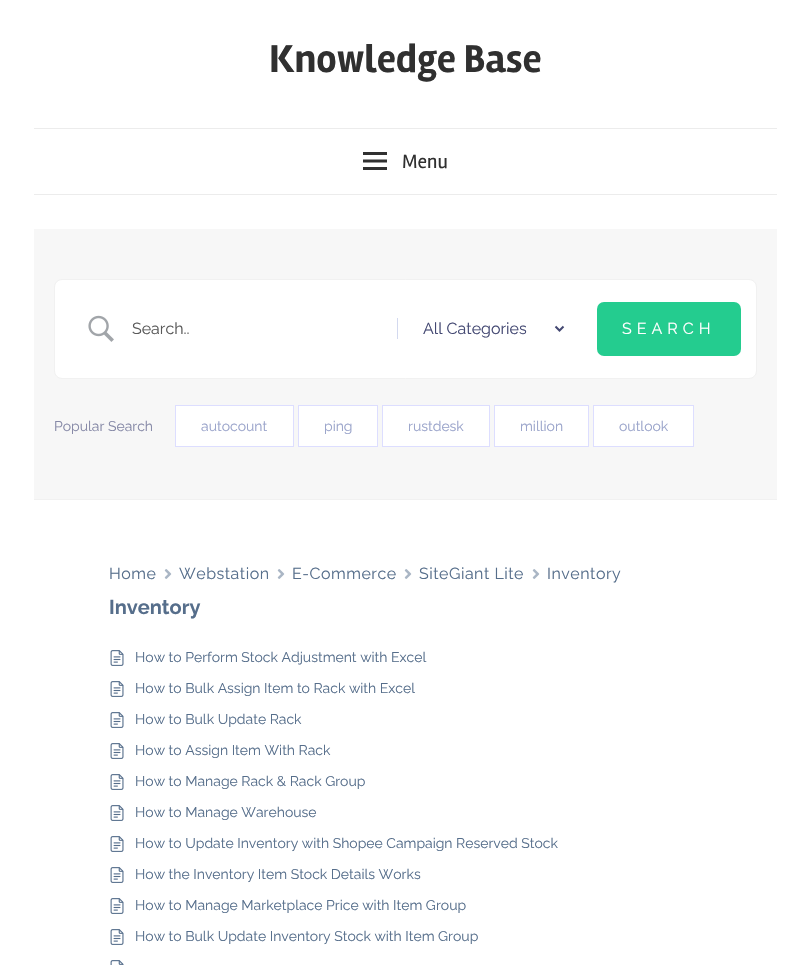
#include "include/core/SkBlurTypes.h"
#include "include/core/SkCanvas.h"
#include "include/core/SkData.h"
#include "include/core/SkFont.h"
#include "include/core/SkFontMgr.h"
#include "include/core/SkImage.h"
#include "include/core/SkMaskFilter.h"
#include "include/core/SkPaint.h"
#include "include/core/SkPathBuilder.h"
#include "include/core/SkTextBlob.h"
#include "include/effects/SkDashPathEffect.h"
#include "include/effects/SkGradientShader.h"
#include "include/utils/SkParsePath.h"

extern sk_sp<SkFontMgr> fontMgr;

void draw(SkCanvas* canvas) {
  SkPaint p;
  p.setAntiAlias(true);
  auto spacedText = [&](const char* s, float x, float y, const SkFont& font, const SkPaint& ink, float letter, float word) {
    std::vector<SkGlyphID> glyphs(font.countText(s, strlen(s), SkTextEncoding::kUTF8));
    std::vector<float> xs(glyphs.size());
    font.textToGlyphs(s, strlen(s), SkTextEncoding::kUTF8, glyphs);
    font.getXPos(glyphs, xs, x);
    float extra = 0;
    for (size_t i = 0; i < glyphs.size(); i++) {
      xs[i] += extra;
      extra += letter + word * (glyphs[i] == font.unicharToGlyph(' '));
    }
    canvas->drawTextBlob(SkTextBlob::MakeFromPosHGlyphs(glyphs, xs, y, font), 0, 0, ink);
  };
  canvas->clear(SK_ColorWHITE);
  p.setColor(SkColorSetRGB(236, 236, 236));
  canvas->drawRect(SkRect::MakeLTRB(34, 194, 777, 195), p);
  canvas->drawRect(SkRect::MakeLTRB(34, 128, 777, 129), p);
  canvas->drawImageRect(SkImages::DeferredFromEncodedData(SkData::MakeFromFileName("images/1.png")), SkRect::MakeLTRB(363, 152, 387, 170), SkSamplingOptions());
  p.setColor(SkColorSetRGB(247, 247, 247));
  canvas->drawRect(SkRect::MakeLTRB(34, 229, 777, 499), p);
  p.setColor(SkColorSetRGB(241, 241, 241));
  canvas->drawRect(SkRect::MakeLTRB(34, 499, 777, 500), p);
  p.setColor(SK_ColorWHITE);
  canvas->drawRoundRect(SkRect::MakeLTRB(54.5f, 279.5f, 756.5f, 378.5f), 7.5f, 7.5f, p);
  p.setStyle(SkPaint::kStroke_Style);
  p.setStrokeWidth(1);
  p.setColor(SkColorSetRGB(241, 241, 241));
  canvas->drawRoundRect(SkRect::MakeLTRB(54.5f, 279.5f, 756.5f, 378.5f), 7.5f, 7.5f, p);
  canvas->drawImageRect(SkImages::DeferredFromEncodedData(SkData::MakeFromFileName("images/2.png")), SkRect::MakeLTRB(88, 315, 114, 342), SkSamplingOptions());
  p.setStyle(SkPaint::kFill_Style);
  p.setColor(SkColorSetRGB(211, 217, 239));
  canvas->drawRect(SkRect::MakeLTRB(397, 318, 398, 339), p);
  p.setStyle(SkPaint::kStroke_Style);
  p.setStrokeWidth(2);
  p.setColor(SkColorSetRGB(67, 72, 114));
  canvas->drawPath(SkPathBuilder().moveTo(555.5f, 326.5f).lineTo(559.5f, 330.5f).lineTo(563.5f, 326.5f).detach(), p);
  p.setStyle(SkPaint::kFill_Style);
  p.setColor(SkColorSetRGB(36, 204, 143));
  canvas->drawRoundRect(SkRect::MakeLTRB(597, 302, 741, 356), 7, 7, p);
  p.setColor(SK_ColorWHITE);
  canvas->drawRect(SkRect::MakeLTRB(175.5f, 405.5f, 293.5f, 446.5f), p);
  p.setStyle(SkPaint::kStroke_Style);
  p.setStrokeWidth(1);
  p.setColor(SkColorSetRGB(221, 222, 255));
  canvas->drawRect(SkRect::MakeLTRB(175.5f, 405.5f, 293.5f, 446.5f), p);
  p.setStyle(SkPaint::kFill_Style);
  p.setColor(SK_ColorWHITE);
  canvas->drawRect(SkRect::MakeLTRB(298.5f, 405.5f, 377.5f, 446.5f), p);
  p.setStyle(SkPaint::kStroke_Style);
  p.setColor(SkColorSetRGB(221, 222, 255));
  canvas->drawRect(SkRect::MakeLTRB(298.5f, 405.5f, 377.5f, 446.5f), p);
  p.setStyle(SkPaint::kFill_Style);
  p.setColor(SK_ColorWHITE);
  canvas->drawRect(SkRect::MakeLTRB(382.5f, 405.5f, 489.5f, 446.5f), p);
  p.setStyle(SkPaint::kStroke_Style);
  p.setColor(SkColorSetRGB(221, 222, 255));
  canvas->drawRect(SkRect::MakeLTRB(382.5f, 405.5f, 489.5f, 446.5f), p);
  p.setStyle(SkPaint::kFill_Style);
  p.setColor(SK_ColorWHITE);
  canvas->drawRect(SkRect::MakeLTRB(494.5f, 405.5f, 588.5f, 446.5f), p);
  p.setStyle(SkPaint::kStroke_Style);
  p.setColor(SkColorSetRGB(221, 222, 255));
  canvas->drawRect(SkRect::MakeLTRB(494.5f, 405.5f, 588.5f, 446.5f), p);
  p.setStyle(SkPaint::kFill_Style);
  p.setColor(SK_ColorWHITE);
  canvas->drawRect(SkRect::MakeLTRB(593.5f, 405.5f, 693.5f, 446.5f), p);
  p.setStyle(SkPaint::kStroke_Style);
  p.setColor(SkColorSetRGB(221, 222, 255));
  canvas->drawRect(SkRect::MakeLTRB(593.5f, 405.5f, 693.5f, 446.5f), p);
  canvas->drawImageRect(SkImages::DeferredFromEncodedData(SkData::MakeFromFileName("images/3.png")), SkRect::MakeLTRB(164, 569, 172, 579), SkSamplingOptions());
  canvas->drawImageRect(SkImages::DeferredFromEncodedData(SkData::MakeFromFileName("images/3.png")), SkRect::MakeLTRB(277, 569, 285, 579), SkSamplingOptions());
  canvas->drawImageRect(SkImages::DeferredFromEncodedData(SkData::MakeFromFileName("images/3.png")), SkRect::MakeLTRB(404, 569, 412, 579), SkSamplingOptions());
  canvas->drawImageRect(SkImages::DeferredFromEncodedData(SkData::MakeFromFileName("images/3.png")), SkRect::MakeLTRB(532, 569, 540, 579), SkSamplingOptions());
  canvas->drawImageRect(SkImages::DeferredFromEncodedData(SkData::MakeFromFileName("images/4.png")), SkRect::MakeLTRB(110, 650, 124, 666), SkSamplingOptions());
  canvas->drawImageRect(SkImages::DeferredFromEncodedData(SkData::MakeFromFileName("images/4.png")), SkRect::MakeLTRB(110, 681, 124, 697), SkSamplingOptions());
  canvas->drawImageRect(SkImages::DeferredFromEncodedData(SkData::MakeFromFileName("images/4.png")), SkRect::MakeLTRB(110, 712, 124, 728), SkSamplingOptions());
  canvas->drawImageRect(SkImages::DeferredFromEncodedData(SkData::MakeFromFileName("images/4.png")), SkRect::MakeLTRB(110, 743, 124, 759), SkSamplingOptions());
  canvas->drawImageRect(SkImages::DeferredFromEncodedData(SkData::MakeFromFileName("images/4.png")), SkRect::MakeLTRB(110, 774, 124, 790), SkSamplingOptions());
  canvas->drawImageRect(SkImages::DeferredFromEncodedData(SkData::MakeFromFileName("images/4.png")), SkRect::MakeLTRB(110, 805, 124, 821), SkSamplingOptions());
  canvas->drawImageRect(SkImages::DeferredFromEncodedData(SkData::MakeFromFileName("images/4.png")), SkRect::MakeLTRB(110, 836, 124, 852), SkSamplingOptions());
  canvas->drawImageRect(SkImages::DeferredFromEncodedData(SkData::MakeFromFileName("images/4.png")), SkRect::MakeLTRB(110, 867, 124, 883), SkSamplingOptions());
  canvas->drawImageRect(SkImages::DeferredFromEncodedData(SkData::MakeFromFileName("images/4.png")), SkRect::MakeLTRB(110, 898, 124, 914), SkSamplingOptions());
  canvas->drawImageRect(SkImages::DeferredFromEncodedData(SkData::MakeFromFileName("images/4.png")), SkRect::MakeLTRB(110, 929, 124, 945), SkSamplingOptions());
  canvas->drawImageRect(SkImages::DeferredFromEncodedData(SkData::MakeFromFileName("images/5.png")), SkRect::MakeLTRB(110, 960, 124, 965), SkSamplingOptions());
  SkFont font1(fontMgr->matchFamilyStyle("Rambla", SkFontStyle::Bold()), 40);
  font1.setSubpixel(true);
  p.setStyle(SkPaint::kFill_Style);
  p.setColor(SkColorSetRGB(48, 48, 48));
  canvas->drawString("Knowledge Base", 269, 72, font1, p);
  SkFont font2(fontMgr->matchFamilyStyle("Rambla", SkFontStyle::Normal()), 20);
  font2.setSubpixel(true);
  canvas->drawString("Menu", 402, 168, font2, p);
  SkFont font3(fontMgr->matchFamilyStyle("Raleway", SkFontStyle::Normal()), 16);
  font3.setSubpixel(true);
  p.setColor(SkColorSetRGB(89, 89, 89));
  canvas->drawString("Search..", 132, 334, font3, p);
  p.setColor(SkColorSetRGB(67, 72, 114));
  canvas->drawString("All Categories", 423, 334, font3, p);
  p.setColor(SK_ColorWHITE);
  spacedText("SEARCH", 622, 334, font3, p, 5, 0);
  SkFont font4(fontMgr->matchFamilyStyle("Raleway", SkFontStyle::Normal()), 14);
  font4.setSubpixel(true);
  p.setColor(SkColorSetRGB(133, 136, 166));
  canvas->drawString("Popular Search", 54, 431, font4, p);
  p.setColor(SkColorSetRGB(153, 163, 202));
  canvas->drawString("autocount", 201, 431, font4, p);
  canvas->drawString("ping", 324, 431, font4, p);
  canvas->drawString("rustdesk", 408, 431, font4, p);
  canvas->drawString("million", 520, 431, font4, p);
  canvas->drawString("outlook", 619, 431, font4, p);
  p.setColor(SkColorSetRGB(86, 110, 139));
  spacedText("Home", 109, 579, font3, p, 0.5f, 0);
  spacedText("Webstation", 179, 579, font3, p, 0.5f, 0);
  spacedText("E-Commerce", 292, 579, font3, p, 0.5f, 0);
  spacedText("SiteGiant Lite", 419, 579, font3, p, 0.5f, 0);
  spacedText("Inventory", 547, 579, font3, p, 0.5f, 0);
  SkFont font5(fontMgr->matchFamilyStyle("Raleway", SkFontStyle::Bold()), 20);
  font5.setSubpixel(true);
  canvas->drawString("Inventory", 109, 614, font5, p);
  canvas->drawString("How to Perform Stock Adjustment with Excel", 135, 662, font4, p);
  canvas->drawString("How to Bulk Assign Item to Rack with Excel", 135, 693, font4, p);
  canvas->drawString("How to Bulk Update Rack", 135, 724, font4, p);
  canvas->drawString("How to Assign Item With Rack", 135, 755, font4, p);
  canvas->drawString("How to Manage Rack & Rack Group", 135, 786, font4, p);
  canvas->drawString("How to Manage Warehouse", 135, 817, font4, p);
  canvas->drawString("How to Update Inventory with Shopee Campaign Reserved Stock", 135, 848, font4, p);
  canvas->drawString("How the Inventory Item Stock Details Works", 135, 879, font4, p);
  canvas->drawString("How to Manage Marketplace Price with Item Group", 135, 910, font4, p);
  canvas->drawString("How to Bulk Update Inventory Stock with Item Group", 135, 941, font4, p);
}
